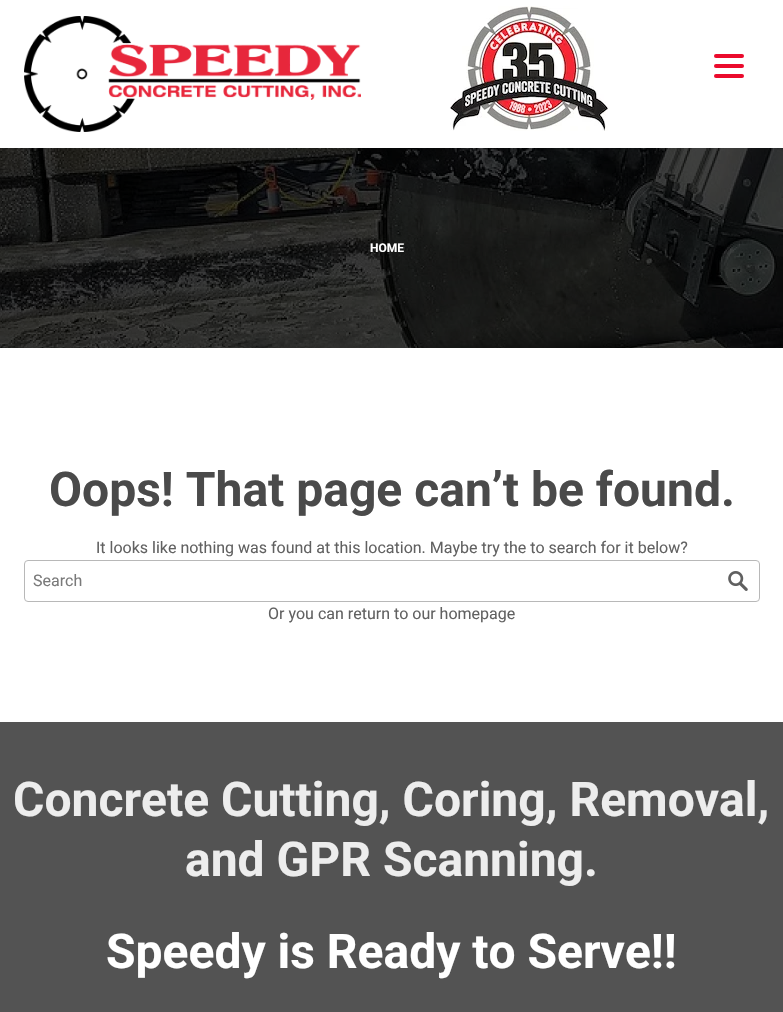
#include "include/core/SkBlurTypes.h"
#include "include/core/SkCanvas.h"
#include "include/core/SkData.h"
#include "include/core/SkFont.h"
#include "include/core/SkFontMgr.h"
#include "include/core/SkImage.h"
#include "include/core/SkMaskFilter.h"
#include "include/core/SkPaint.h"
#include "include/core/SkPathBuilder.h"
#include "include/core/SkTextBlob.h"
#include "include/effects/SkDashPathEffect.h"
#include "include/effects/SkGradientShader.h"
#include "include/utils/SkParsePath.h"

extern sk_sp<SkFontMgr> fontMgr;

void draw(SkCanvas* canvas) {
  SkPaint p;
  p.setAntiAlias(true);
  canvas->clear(SK_ColorWHITE);
  canvas->drawImageRect(SkImages::DeferredFromEncodedData(SkData::MakeFromFileName("images/1.png")), SkRect::MakeLTRB(24, 16, 361, 132), SkSamplingOptions());
  canvas->drawImageRect(SkImages::DeferredFromEncodedData(SkData::MakeFromFileName("images/2.png")), SkRect::MakeLTRB(450, 6, 608, 131), SkSamplingOptions());
  p.setColor(SkColorSetRGB(235, 10, 44));
  canvas->drawRoundRect(SkRect::MakeLTRB(714, 74, 744, 78), 2, 2, p);
  canvas->drawRoundRect(SkRect::MakeLTRB(714, 54, 744, 58), 2, 2, p);
  canvas->drawRoundRect(SkRect::MakeLTRB(714, 64, 744, 68), 2, 2, p);
  canvas->drawImageRect(SkImages::DeferredFromEncodedData(SkData::MakeFromFileName("images/3.png")), SkRect::MakeLTRB(0, 148, 783, 348), SkSamplingOptions());
  p.setStyle(SkPaint::kStroke_Style);
  p.setStrokeWidth(1);
  p.setColor(SkColorSetRGB(184, 184, 184));
  canvas->drawRoundRect(SkRect::MakeLTRB(24.5f, 560.5f, 759.5f, 601.5f), 3.5f, 3.5f, p);
  canvas->drawImageRect(SkImages::DeferredFromEncodedData(SkData::MakeFromFileName("images/4.png")), SkRect::MakeLTRB(728, 571, 748, 591), SkSamplingOptions());
  p.setStyle(SkPaint::kFill_Style);
  p.setColor(SkColorSetRGB(83, 83, 83));
  canvas->drawRect(SkRect::MakeLTRB(0, 722, 783, 1012), p);
  SkFont font1(fontMgr->matchFamilyStyle("Roboto", SkFontStyle::Bold()), 12);
  font1.setSubpixel(true);
  p.setColor(SK_ColorWHITE);
  canvas->drawString("HOME", 370, 252, font1, p);
  SkFont font2(fontMgr->matchFamilyStyle("Roboto", SkFontStyle::Bold()), 48);
  font2.setSubpixel(true);
  p.setColor(SkColorSetRGB(74, 74, 74));
  canvas->drawString("Oops! That page can’t be found.", 49, 506, font2, p);
  SkFont font3(fontMgr->matchFamilyStyle("Roboto", SkFontStyle::Normal()), 16);
  font3.setSubpixel(true);
  p.setColor(SkColorSetRGB(97, 97, 97));
  canvas->drawString("It looks like nothing was found at this location. Maybe try the to search for it below?", 96, 553, font3, p);
  p.setColor(SkColorSetRGB(122, 122, 122));
  canvas->drawString("Search", 33, 586, font3, p);
  p.setColor(SkColorSetRGB(97, 97, 97));
  canvas->drawString("Or you can return to our homepage", 268, 619, font3, p);
  p.setColor(SkColorSetRGB(237, 237, 237));
  canvas->drawString("Concrete Cutting, Coring, Removal,", 13, 816, font2, p);
  canvas->drawString("and GPR Scanning.", 185, 876, font2, p);
  p.setColor(SK_ColorWHITE);
  canvas->drawString("Speedy is Ready to Serve!!", 106, 968, font2, p);
}
